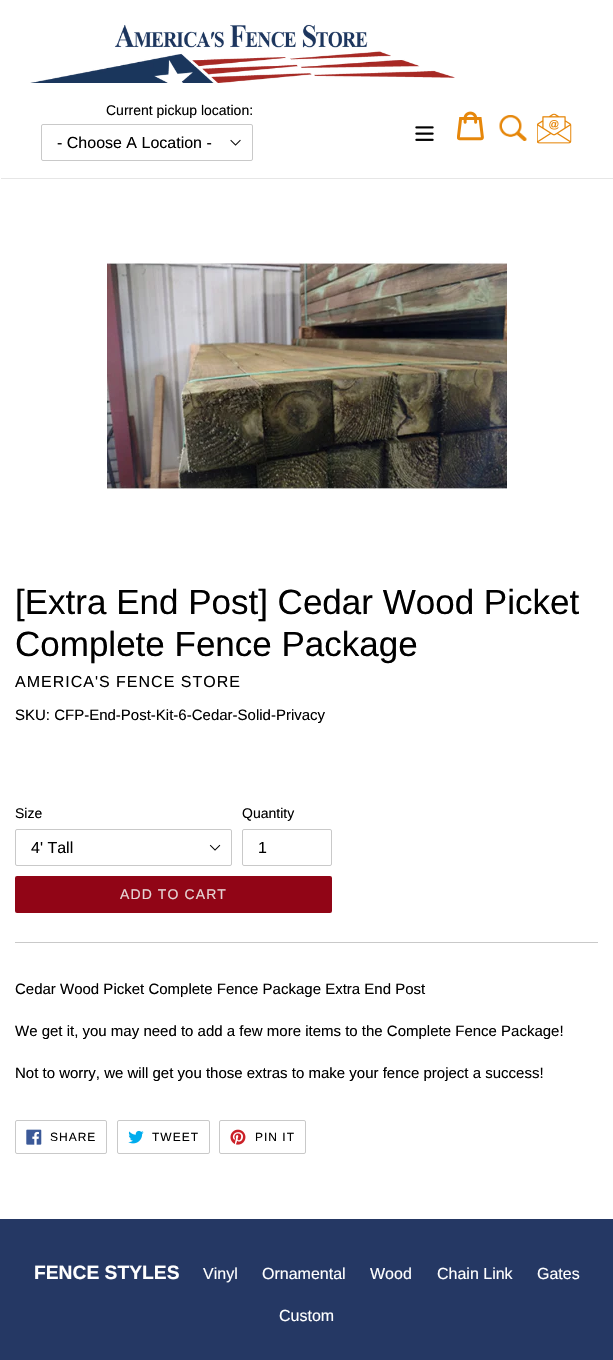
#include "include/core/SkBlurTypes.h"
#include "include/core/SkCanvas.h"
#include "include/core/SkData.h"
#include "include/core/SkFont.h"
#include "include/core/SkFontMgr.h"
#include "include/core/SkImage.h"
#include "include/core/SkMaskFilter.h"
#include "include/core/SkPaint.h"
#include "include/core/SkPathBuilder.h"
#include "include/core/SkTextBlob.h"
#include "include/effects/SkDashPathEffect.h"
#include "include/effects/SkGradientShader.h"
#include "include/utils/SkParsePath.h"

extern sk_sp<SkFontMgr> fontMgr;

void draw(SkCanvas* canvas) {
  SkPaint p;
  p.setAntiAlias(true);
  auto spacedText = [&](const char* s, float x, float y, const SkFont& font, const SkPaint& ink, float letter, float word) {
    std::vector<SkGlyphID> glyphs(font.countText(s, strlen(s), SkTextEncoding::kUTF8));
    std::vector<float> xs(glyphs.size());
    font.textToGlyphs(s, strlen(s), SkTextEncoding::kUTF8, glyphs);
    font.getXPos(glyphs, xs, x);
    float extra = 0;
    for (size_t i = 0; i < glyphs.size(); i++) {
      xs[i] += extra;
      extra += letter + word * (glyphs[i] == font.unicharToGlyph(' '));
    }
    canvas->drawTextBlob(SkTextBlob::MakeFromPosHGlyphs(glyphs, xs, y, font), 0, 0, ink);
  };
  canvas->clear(SK_ColorWHITE);
  p.setColor(SkColorSetRGB(230, 230, 230));
  canvas->drawRect(SkRect::MakeLTRB(1, 178, 613, 179), p);
  canvas->drawImageRect(SkImages::DeferredFromEncodedData(SkData::MakeFromFileName("images/1.png")), SkRect::MakeLTRB(30, 24, 455, 83), SkSamplingOptions());
  canvas->drawImageRect(SkImages::DeferredFromEncodedData(SkData::MakeFromFileName("images/2.png")), SkRect::MakeLTRB(230, 139, 241, 146), SkSamplingOptions());
  p.setStyle(SkPaint::kStroke_Style);
  p.setStrokeWidth(1);
  p.setColor(SkColorSetRGB(201, 201, 201));
  canvas->drawRoundRect(SkRect::MakeLTRB(41.5f, 124.5f, 252.5f, 160.5f), 1.5f, 1.5f, p);
  canvas->drawImageRect(SkImages::DeferredFromEncodedData(SkData::MakeFromFileName("images/3.png")), SkRect::MakeLTRB(415, 126, 434, 141), SkSamplingOptions());
  canvas->drawImageRect(SkImages::DeferredFromEncodedData(SkData::MakeFromFileName("images/4.png")), SkRect::MakeLTRB(457, 111, 484, 141), SkSamplingOptions());
  canvas->drawImageRect(SkImages::DeferredFromEncodedData(SkData::MakeFromFileName("images/5.png")), SkRect::MakeLTRB(499, 115, 527, 141), SkSamplingOptions());
  canvas->drawImageRect(SkImages::DeferredFromEncodedData(SkData::MakeFromFileName("images/6.png")), SkRect::MakeLTRB(537, 113, 572, 144), SkSamplingOptions());
  canvas->drawImageRect(SkImages::DeferredFromEncodedData(SkData::MakeFromFileName("images/7.png")), SkRect::MakeLTRB(107, 261, 507, 489), SkSamplingOptions());
  canvas->drawImageRect(SkImages::DeferredFromEncodedData(SkData::MakeFromFileName("images/8.png")), SkRect::MakeLTRB(209, 844, 221, 851), SkSamplingOptions());
  canvas->drawRoundRect(SkRect::MakeLTRB(15.5f, 829.5f, 231.5f, 865.5f), 1.5f, 1.5f, p);
  canvas->drawRoundRect(SkRect::MakeLTRB(242.5f, 829.5f, 331.5f, 865.5f), 1.5f, 1.5f, p);
  p.setStyle(SkPaint::kFill_Style);
  p.setColor(SkColorSetRGB(145, 5, 22));
  canvas->drawRoundRect(SkRect::MakeLTRB(15, 876, 332, 913), 2, 2, p);
  p.setColor(SkColorSetRGB(201, 201, 201));
  canvas->drawRect(SkRect::MakeLTRB(15, 942, 598, 943), p);
  p.setStyle(SkPaint::kStroke_Style);
  canvas->drawRoundRect(SkRect::MakeLTRB(15.5f, 1120.5f, 106.5f, 1153.5f), 1.5f, 1.5f, p);
  canvas->drawImageRect(SkImages::DeferredFromEncodedData(SkData::MakeFromFileName("images/9.png")), SkRect::MakeLTRB(26, 1129, 42, 1145), SkSamplingOptions());
  canvas->drawRoundRect(SkRect::MakeLTRB(117.5f, 1120.5f, 209.5f, 1153.5f), 1.5f, 1.5f, p);
  canvas->drawImageRect(SkImages::DeferredFromEncodedData(SkData::MakeFromFileName("images/10.png")), SkRect::MakeLTRB(128, 1130, 144, 1144), SkSamplingOptions());
  canvas->drawRoundRect(SkRect::MakeLTRB(219.5f, 1120.5f, 305.5f, 1153.5f), 1.5f, 1.5f, p);
  canvas->drawImageRect(SkImages::DeferredFromEncodedData(SkData::MakeFromFileName("images/11.png")), SkRect::MakeLTRB(230, 1129, 246, 1145), SkSamplingOptions());
  p.setStyle(SkPaint::kFill_Style);
  p.setColor(SkColorSetRGB(37, 56, 100));
  canvas->drawRect(SkRect::MakeLTRB(0, 1219, 613, 1360), p);
  SkFont font1(fontMgr->matchFamilyStyle("Liberation Sans", SkFontStyle::Normal()), 14);
  font1.setSubpixel(true);
  p.setColor(SK_ColorBLACK);
  canvas->drawString("Current pickup location:", 106, 115, font1, p);
  SkFont font2(fontMgr->matchFamilyStyle("Liberation Sans", SkFontStyle::Normal()), 16);
  font2.setSubpixel(true);
  canvas->drawString("- Choose A Location -", 57, 148, font2, p);
  SkFont font3(fontMgr->matchFamilyStyle("Liberation Sans", SkFontStyle::Normal()), 35);
  font3.setSubpixel(true);
  canvas->drawString("[Extra End Post] Cedar Wood Picket", 15, 614, font3, p);
  canvas->drawString("Complete Fence Package", 15, 656, font3, p);
  spacedText("AMERICA'S FENCE STORE", 15, 687, font2, p, 1, 0);
  SkFont font4(fontMgr->matchFamilyStyle("Liberation Sans", SkFontStyle::Normal()), 15);
  font4.setSubpixel(true);
  canvas->drawString("SKU: CFP-End-Post-Kit-6-Cedar-Solid-Privacy", 15, 720, font4, p);
  canvas->drawString("Size", 15, 818, font1, p);
  canvas->drawString("4' Tall", 31, 853, font2, p);
  canvas->drawString("Quantity", 242, 818, font1, p);
  canvas->drawString("1", 258, 853, font2, p);
  p.setColor(SkColorSetRGB(230, 212, 212));
  spacedText("ADD TO CART", 120, 899, font1, p, 1.1f, 0);
  p.setColor(SK_ColorBLACK);
  canvas->drawString("Cedar Wood Picket Complete Fence Package Extra End Post", 15, 994, font4, p);
  canvas->drawString("We get it, you may need to add a few more items to the Complete Fence Package!", 15, 1036, font4, p);
  canvas->drawString("Not to worry, we will get you those extras to make your fence project a success!", 15, 1078, font4, p);
  SkFont font5(fontMgr->matchFamilyStyle("Liberation Sans", SkFontStyle::Normal()), 12);
  font5.setSubpixel(true);
  spacedText("SHARE", 50, 1141, font5, p, 1, 0);
  spacedText("TWEET", 152, 1141, font5, p, 1, 0);
  spacedText("PIN IT", 255, 1141, font5, p, 1, 0);
  SkFont font6(fontMgr->matchFamilyStyle("Liberation Sans", SkFontStyle::Bold()), 19.25f);
  font6.setSubpixel(true);
  p.setColor(SK_ColorWHITE);
  canvas->drawString("FENCE STYLES", 34, 1279, font6, p);
  canvas->drawString("Vinyl", 203, 1279, font2, p);
  canvas->drawString("Ornamental", 262, 1279, font2, p);
  canvas->drawString("Wood", 370, 1279, font2, p);
  canvas->drawString("Chain Link", 437, 1279, font2, p);
  canvas->drawString("Gates", 537, 1279, font2, p);
  canvas->drawString("Custom", 279, 1321, font2, p);
}
